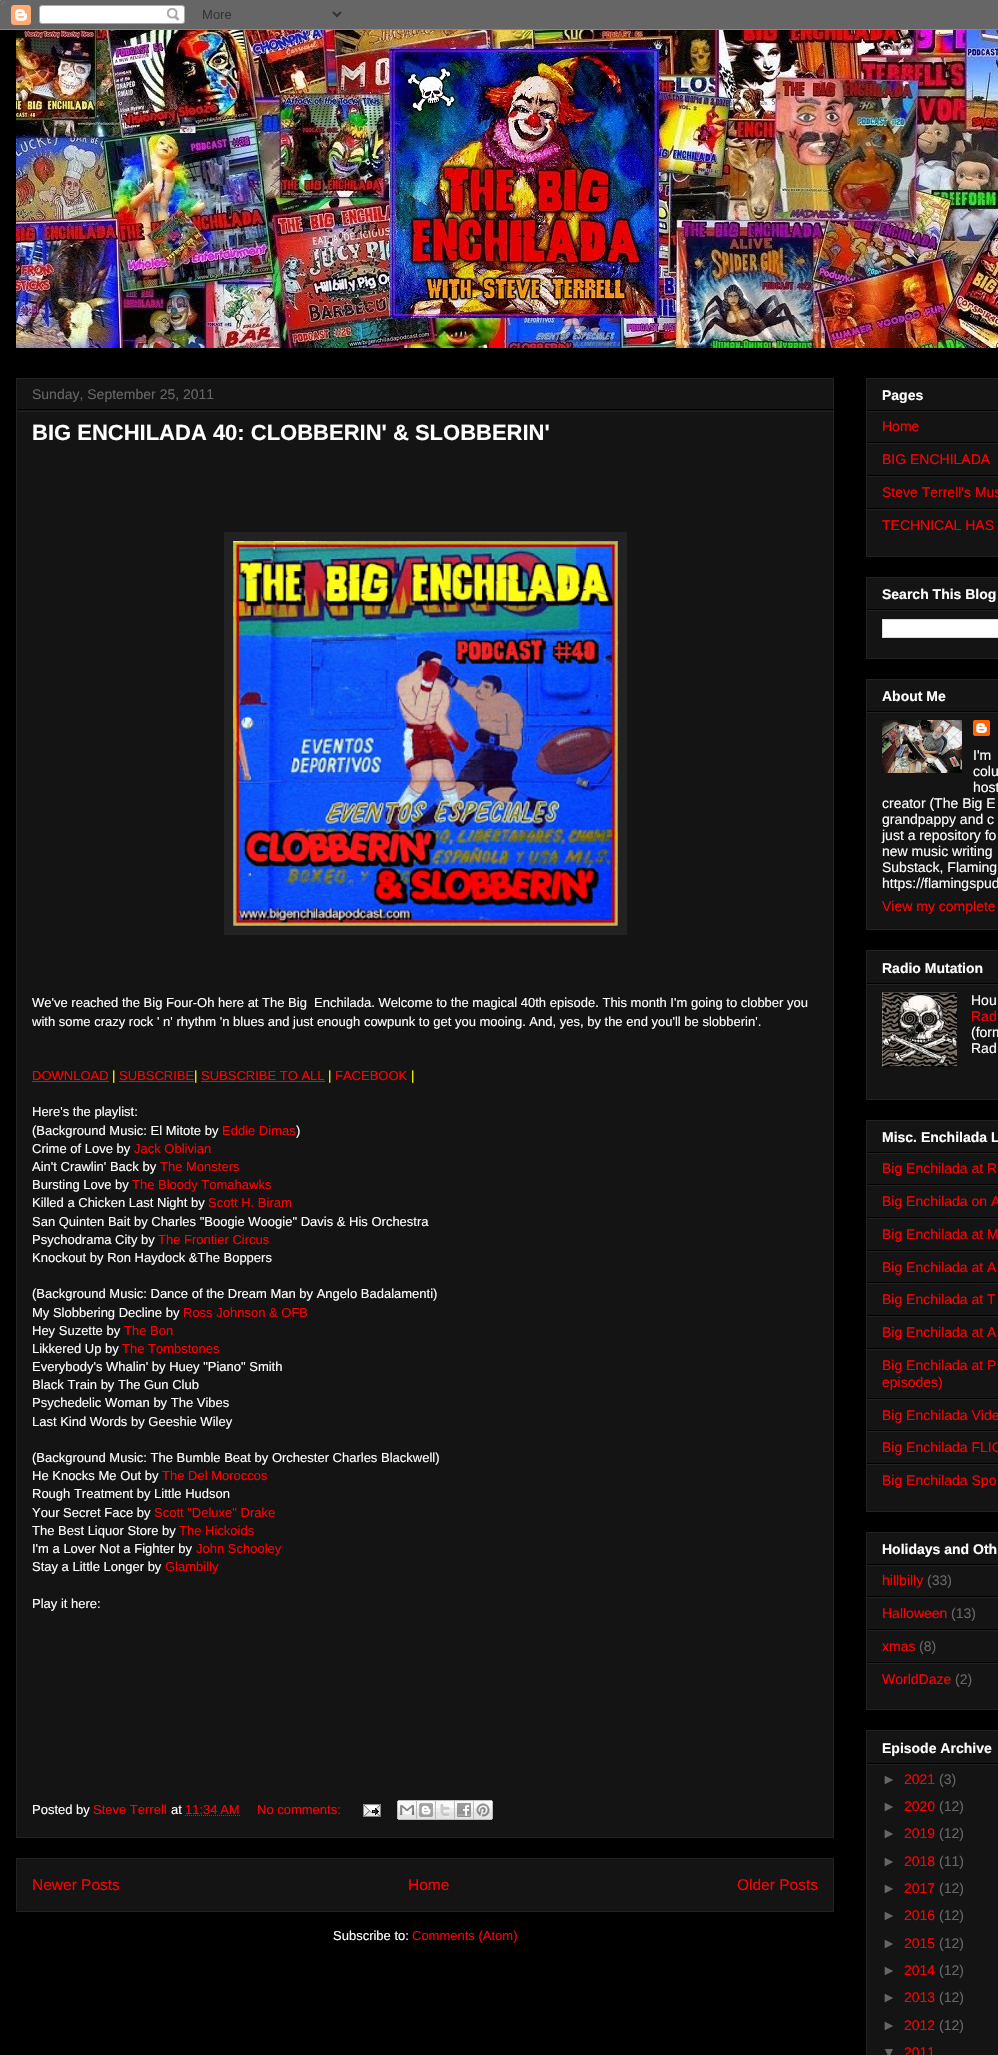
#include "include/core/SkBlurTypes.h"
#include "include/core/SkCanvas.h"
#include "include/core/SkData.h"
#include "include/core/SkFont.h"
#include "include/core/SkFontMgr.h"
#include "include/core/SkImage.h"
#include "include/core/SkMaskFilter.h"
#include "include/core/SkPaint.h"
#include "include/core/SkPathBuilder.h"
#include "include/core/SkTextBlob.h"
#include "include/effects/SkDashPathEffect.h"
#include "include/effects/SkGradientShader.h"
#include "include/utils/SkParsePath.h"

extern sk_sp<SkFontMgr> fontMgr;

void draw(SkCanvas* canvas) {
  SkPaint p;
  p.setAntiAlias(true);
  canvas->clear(SK_ColorBLACK);
  canvas->drawImageRect(SkImages::DeferredFromEncodedData(SkData::MakeFromFileName("images/1.png")), SkRect::MakeLTRB(0, 0, 5, 5), SkSamplingOptions());
  canvas->drawImageRect(SkImages::DeferredFromEncodedData(SkData::MakeFromFileName("images/2.png")), SkRect::MakeLTRB(0, 0, 998, 30), SkSamplingOptions());
  canvas->drawImageRect(SkImages::DeferredFromEncodedData(SkData::MakeFromFileName("images/3.png")), SkRect::MakeLTRB(16, 30, 998, 348), SkSamplingOptions());
  p.setColor(SkColorSetRGB(20, 20, 20));
  canvas->drawRect(SkRect::MakeLTRB(16.5f, 378.5f, 833.5f, 1837.5f), p);
  p.setStyle(SkPaint::kStroke_Style);
  p.setStrokeWidth(1);
  p.setColor(SkColorSetRGB(34, 34, 34));
  canvas->drawRect(SkRect::MakeLTRB(16.5f, 378.5f, 833.5f, 1837.5f), p);
  p.setStyle(SkPaint::kFill_Style);
  p.setColor(SK_ColorBLACK);
  canvas->drawRect(SkRect::MakeLTRB(17, 409, 833, 410), p);
  p.setColor(SkColorSetRGB(34, 34, 34));
  canvas->drawRect(SkRect::MakeLTRB(17, 411, 833, 412), p);
  canvas->drawRect(SkRect::MakeLTRB(224, 532, 627, 935), p);
  canvas->drawImageRect(SkImages::DeferredFromEncodedData(SkData::MakeFromFileName("images/4.png")), SkRect::MakeLTRB(233, 541, 618, 926), SkSamplingOptions());
  p.setColor(SkColorSetRGB(255, 0, 0));
  canvas->drawRect(SkRect::MakeLTRB(32, 1081, 109, 1082), p);
  canvas->drawRect(SkRect::MakeLTRB(119, 1081, 194, 1082), p);
  canvas->drawRect(SkRect::MakeLTRB(201, 1081, 325, 1082), p);
  p.setStyle(SkPaint::kStroke_Style);
  p.setPathEffect(SkDashPathEffect::Make({{1, 1}}, 0));
  canvas->drawPath(SkPathBuilder().moveTo(185, 1815.5f).lineTo(240, 1815.5f).detach(), p);
  p.setPathEffect(nullptr);
  canvas->drawImageRect(SkImages::DeferredFromEncodedData(SkData::MakeFromFileName("images/5.png")), SkRect::MakeLTRB(363, 1804, 381, 1817), SkSamplingOptions());
  canvas->drawImageRect(SkImages::DeferredFromEncodedData(SkData::MakeFromFileName("images/6.png")), SkRect::MakeLTRB(397, 1800, 417, 1820), SkSamplingOptions());
  canvas->drawImageRect(SkImages::DeferredFromEncodedData(SkData::MakeFromFileName("images/7.png")), SkRect::MakeLTRB(417, 1800, 436, 1820), SkSamplingOptions());
  canvas->drawImageRect(SkImages::DeferredFromEncodedData(SkData::MakeFromFileName("images/8.png")), SkRect::MakeLTRB(436, 1800, 455, 1820), SkSamplingOptions());
  canvas->drawImageRect(SkImages::DeferredFromEncodedData(SkData::MakeFromFileName("images/9.png")), SkRect::MakeLTRB(455, 1800, 474, 1820), SkSamplingOptions());
  canvas->drawImageRect(SkImages::DeferredFromEncodedData(SkData::MakeFromFileName("images/10.png")), SkRect::MakeLTRB(474, 1800, 493, 1820), SkSamplingOptions());
  p.setStyle(SkPaint::kFill_Style);
  p.setColor(SkColorSetRGB(20, 20, 20));
  canvas->drawRect(SkRect::MakeLTRB(16.5f, 1858.5f, 833.5f, 1911.5f), p);
  p.setStyle(SkPaint::kStroke_Style);
  p.setColor(SkColorSetRGB(34, 34, 34));
  canvas->drawRect(SkRect::MakeLTRB(16.5f, 1858.5f, 833.5f, 1911.5f), p);
  p.setStyle(SkPaint::kFill_Style);
  p.setColor(SkColorSetRGB(20, 20, 20));
  canvas->drawRect(SkRect::MakeLTRB(866.5f, 378.5f, 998.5f, 556.5f), p);
  p.setStyle(SkPaint::kStroke_Style);
  p.setColor(SkColorSetRGB(34, 34, 34));
  canvas->drawRect(SkRect::MakeLTRB(866.5f, 378.5f, 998.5f, 556.5f), p);
  p.setStyle(SkPaint::kFill_Style);
  p.setColor(SK_ColorBLACK);
  canvas->drawRect(SkRect::MakeLTRB(867, 410, 998, 411), p);
  p.setColor(SkColorSetRGB(34, 34, 34));
  canvas->drawRect(SkRect::MakeLTRB(867, 411, 998, 412), p);
  p.setColor(SK_ColorBLACK);
  canvas->drawRect(SkRect::MakeLTRB(867, 442, 998, 443), p);
  p.setColor(SkColorSetRGB(34, 34, 34));
  canvas->drawRect(SkRect::MakeLTRB(867, 443, 998, 444), p);
  p.setColor(SK_ColorBLACK);
  canvas->drawRect(SkRect::MakeLTRB(867, 475, 998, 476), p);
  p.setColor(SkColorSetRGB(34, 34, 34));
  canvas->drawRect(SkRect::MakeLTRB(867, 476, 998, 477), p);
  p.setColor(SK_ColorBLACK);
  canvas->drawRect(SkRect::MakeLTRB(867, 508, 998, 509), p);
  p.setColor(SkColorSetRGB(34, 34, 34));
  canvas->drawRect(SkRect::MakeLTRB(867, 509, 998, 510), p);
  p.setColor(SkColorSetRGB(20, 20, 20));
  canvas->drawRect(SkRect::MakeLTRB(866.5f, 577.5f, 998.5f, 658.5f), p);
  p.setStyle(SkPaint::kStroke_Style);
  p.setColor(SkColorSetRGB(34, 34, 34));
  canvas->drawRect(SkRect::MakeLTRB(866.5f, 577.5f, 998.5f, 658.5f), p);
  p.setStyle(SkPaint::kFill_Style);
  p.setColor(SK_ColorBLACK);
  canvas->drawRect(SkRect::MakeLTRB(867, 609, 998, 610), p);
  p.setColor(SkColorSetRGB(34, 34, 34));
  canvas->drawRect(SkRect::MakeLTRB(867, 610, 998, 611), p);
  p.setColor(SK_ColorWHITE);
  canvas->drawRect(SkRect::MakeLTRB(882.5f, 619.5f, 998.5f, 637.5f), p);
  p.setStyle(SkPaint::kStroke_Style);
  p.setColor(SkColorSetRGB(221, 221, 221));
  canvas->drawRect(SkRect::MakeLTRB(882.5f, 619.5f, 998.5f, 637.5f), p);
  p.setStyle(SkPaint::kFill_Style);
  p.setColor(SkColorSetRGB(20, 20, 20));
  canvas->drawRect(SkRect::MakeLTRB(866.5f, 679.5f, 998.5f, 929.5f), p);
  p.setStyle(SkPaint::kStroke_Style);
  p.setColor(SkColorSetRGB(34, 34, 34));
  canvas->drawRect(SkRect::MakeLTRB(866.5f, 679.5f, 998.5f, 929.5f), p);
  p.setStyle(SkPaint::kFill_Style);
  p.setColor(SK_ColorBLACK);
  canvas->drawRect(SkRect::MakeLTRB(867, 711, 998, 712), p);
  p.setColor(SkColorSetRGB(34, 34, 34));
  canvas->drawRect(SkRect::MakeLTRB(867, 712, 998, 713), p);
  canvas->drawImageRect(SkImages::DeferredFromEncodedData(SkData::MakeFromFileName("images/11.png")), SkRect::MakeLTRB(882, 720, 962, 773), SkSamplingOptions());
  canvas->drawImageRect(SkImages::DeferredFromEncodedData(SkData::MakeFromFileName("images/12.png")), SkRect::MakeLTRB(973, 720, 990, 736), SkSamplingOptions());
  p.setColor(SkColorSetRGB(20, 20, 20));
  canvas->drawRect(SkRect::MakeLTRB(866.5f, 950.5f, 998.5f, 1099.5f), p);
  p.setStyle(SkPaint::kStroke_Style);
  p.setColor(SkColorSetRGB(34, 34, 34));
  canvas->drawRect(SkRect::MakeLTRB(866.5f, 950.5f, 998.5f, 1099.5f), p);
  p.setStyle(SkPaint::kFill_Style);
  p.setColor(SK_ColorBLACK);
  canvas->drawRect(SkRect::MakeLTRB(867, 983, 998, 984), p);
  p.setColor(SkColorSetRGB(34, 34, 34));
  canvas->drawRect(SkRect::MakeLTRB(867, 984, 998, 985), p);
  canvas->drawImageRect(SkImages::DeferredFromEncodedData(SkData::MakeFromFileName("images/13.png")), SkRect::MakeLTRB(882, 992, 957, 1067), SkSamplingOptions());
  p.setColor(SkColorSetRGB(20, 20, 20));
  canvas->drawRect(SkRect::MakeLTRB(866.5f, 1120.5f, 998.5f, 1511.5f), p);
  p.setStyle(SkPaint::kStroke_Style);
  p.setColor(SkColorSetRGB(34, 34, 34));
  canvas->drawRect(SkRect::MakeLTRB(866.5f, 1120.5f, 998.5f, 1511.5f), p);
  p.setStyle(SkPaint::kFill_Style);
  p.setColor(SK_ColorBLACK);
  canvas->drawRect(SkRect::MakeLTRB(867, 1152, 998, 1153), p);
  p.setColor(SkColorSetRGB(34, 34, 34));
  canvas->drawRect(SkRect::MakeLTRB(867, 1153, 998, 1154), p);
  p.setColor(SK_ColorBLACK);
  canvas->drawRect(SkRect::MakeLTRB(867, 1184, 998, 1185), p);
  p.setColor(SkColorSetRGB(34, 34, 34));
  canvas->drawRect(SkRect::MakeLTRB(867, 1185, 998, 1186), p);
  p.setColor(SK_ColorBLACK);
  canvas->drawRect(SkRect::MakeLTRB(867, 1217, 998, 1218), p);
  p.setColor(SkColorSetRGB(34, 34, 34));
  canvas->drawRect(SkRect::MakeLTRB(867, 1218, 998, 1219), p);
  p.setColor(SK_ColorBLACK);
  canvas->drawRect(SkRect::MakeLTRB(867, 1250, 998, 1251), p);
  p.setColor(SkColorSetRGB(34, 34, 34));
  canvas->drawRect(SkRect::MakeLTRB(867, 1251, 998, 1252), p);
  p.setColor(SK_ColorBLACK);
  canvas->drawRect(SkRect::MakeLTRB(867, 1282, 998, 1283), p);
  p.setColor(SkColorSetRGB(34, 34, 34));
  canvas->drawRect(SkRect::MakeLTRB(867, 1283, 998, 1284), p);
  p.setColor(SK_ColorBLACK);
  canvas->drawRect(SkRect::MakeLTRB(867, 1315, 998, 1316), p);
  p.setColor(SkColorSetRGB(34, 34, 34));
  canvas->drawRect(SkRect::MakeLTRB(867, 1316, 998, 1317), p);
  p.setColor(SK_ColorBLACK);
  canvas->drawRect(SkRect::MakeLTRB(867, 1348, 998, 1349), p);
  p.setColor(SkColorSetRGB(34, 34, 34));
  canvas->drawRect(SkRect::MakeLTRB(867, 1349, 998, 1350), p);
  p.setColor(SK_ColorBLACK);
  canvas->drawRect(SkRect::MakeLTRB(867, 1398, 998, 1399), p);
  p.setColor(SkColorSetRGB(34, 34, 34));
  canvas->drawRect(SkRect::MakeLTRB(867, 1399, 998, 1400), p);
  p.setColor(SK_ColorBLACK);
  canvas->drawRect(SkRect::MakeLTRB(867, 1430, 998, 1431), p);
  p.setColor(SkColorSetRGB(34, 34, 34));
  canvas->drawRect(SkRect::MakeLTRB(867, 1431, 998, 1432), p);
  p.setColor(SK_ColorBLACK);
  canvas->drawRect(SkRect::MakeLTRB(867, 1463, 998, 1464), p);
  p.setColor(SkColorSetRGB(34, 34, 34));
  canvas->drawRect(SkRect::MakeLTRB(867, 1464, 998, 1465), p);
  p.setColor(SkColorSetRGB(20, 20, 20));
  canvas->drawRect(SkRect::MakeLTRB(866.5f, 1532.5f, 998.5f, 1709.5f), p);
  p.setStyle(SkPaint::kStroke_Style);
  p.setColor(SkColorSetRGB(34, 34, 34));
  canvas->drawRect(SkRect::MakeLTRB(866.5f, 1532.5f, 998.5f, 1709.5f), p);
  p.setStyle(SkPaint::kFill_Style);
  p.setColor(SK_ColorBLACK);
  canvas->drawRect(SkRect::MakeLTRB(867, 1564, 998, 1565), p);
  p.setColor(SkColorSetRGB(34, 34, 34));
  canvas->drawRect(SkRect::MakeLTRB(867, 1565, 998, 1566), p);
  p.setColor(SK_ColorBLACK);
  canvas->drawRect(SkRect::MakeLTRB(867, 1596, 998, 1597), p);
  p.setColor(SkColorSetRGB(34, 34, 34));
  canvas->drawRect(SkRect::MakeLTRB(867, 1597, 998, 1598), p);
  p.setColor(SK_ColorBLACK);
  canvas->drawRect(SkRect::MakeLTRB(867, 1629, 998, 1630), p);
  p.setColor(SkColorSetRGB(34, 34, 34));
  canvas->drawRect(SkRect::MakeLTRB(867, 1630, 998, 1631), p);
  p.setColor(SK_ColorBLACK);
  canvas->drawRect(SkRect::MakeLTRB(867, 1662, 998, 1663), p);
  p.setColor(SkColorSetRGB(34, 34, 34));
  canvas->drawRect(SkRect::MakeLTRB(867, 1663, 998, 1664), p);
  p.setColor(SkColorSetRGB(20, 20, 20));
  canvas->drawRect(SkRect::MakeLTRB(866.5f, 1730.5f, 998.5f, 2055.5f), p);
  p.setStyle(SkPaint::kStroke_Style);
  p.setColor(SkColorSetRGB(34, 34, 34));
  canvas->drawRect(SkRect::MakeLTRB(866.5f, 1730.5f, 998.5f, 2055.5f), p);
  p.setStyle(SkPaint::kFill_Style);
  p.setColor(SK_ColorBLACK);
  canvas->drawRect(SkRect::MakeLTRB(867, 1763, 998, 1764), p);
  p.setColor(SkColorSetRGB(34, 34, 34));
  canvas->drawRect(SkRect::MakeLTRB(867, 1764, 998, 1765), p);
  SkFont font1(fontMgr->matchFamilyStyle("Liberation Sans", SkFontStyle::Normal()), 14);
  font1.setSubpixel(true);
  p.setColor(SkColorSetRGB(102, 102, 102));
  canvas->drawString("Sunday, September 25, 2011", 32, 399, font1, p);
  SkFont font2(fontMgr->matchFamilyStyle("Liberation Sans", SkFontStyle::Bold()), 22);
  font2.setSubpixel(true);
  p.setColor(SK_ColorWHITE);
  canvas->drawString("BIG ENCHILADA 40: CLOBBERIN' & SLOBBERIN'", 32, 440, font2, p);
  SkFont font3(fontMgr->matchFamilyStyle("Liberation Sans", SkFontStyle::Normal()), 13);
  font3.setSubpixel(true);
  canvas->drawString("We've reached the Big Four-Oh here at The Big  Enchilada. Welcome to the magical 40th episode. This month I'm going to clobber you", 32, 1007, font3, p);
  canvas->drawString("with some crazy rock ' n' rhythm 'n blues and just enough cowpunk to get you mooing. And, yes, by the end you'll be slobberin'.", 32, 1026, font3, p);
  p.setColor(SkColorSetRGB(255, 0, 0));
  canvas->drawString("DOWNLOAD", 32, 1080, font3, p);
  p.setColor(SkColorSetRGB(255, 255, 0));
  canvas->drawString("|", 112, 1080, font3, p);
  p.setColor(SkColorSetRGB(255, 0, 0));
  canvas->drawString("SUBSCRIBE", 119, 1080, font3, p);
  p.setColor(SkColorSetRGB(255, 255, 0));
  canvas->drawString("|", 194, 1080, font3, p);
  p.setColor(SkColorSetRGB(255, 0, 0));
  canvas->drawString("SUBSCRIBE TO ALL", 201, 1080, font3, p);
  p.setColor(SkColorSetRGB(255, 255, 0));
  canvas->drawString("|", 328, 1080, font3, p);
  p.setColor(SkColorSetRGB(255, 0, 0));
  canvas->drawString("FACEBOOK", 335, 1080, font3, p);
  p.setColor(SkColorSetRGB(255, 255, 0));
  canvas->drawString("|", 411, 1080, font3, p);
  p.setColor(SK_ColorWHITE);
  canvas->drawString("Here's the playlist:", 32, 1116, font3, p);
  canvas->drawString("(Background Music: El Mitote by", 32, 1135, font3, p);
  p.setColor(SkColorSetRGB(255, 0, 0));
  canvas->drawString("Eddie Dimas", 222, 1135, font3, p);
  p.setColor(SK_ColorWHITE);
  canvas->drawString(")", 296, 1135, font3, p);
  canvas->drawString("Crime of Love by", 32, 1153, font3, p);
  p.setColor(SkColorSetRGB(255, 0, 0));
  canvas->drawString("Jack Oblivian", 134, 1153, font3, p);
  p.setColor(SK_ColorWHITE);
  canvas->drawString("Ain't Crawlin' Back by", 32, 1171, font3, p);
  p.setColor(SkColorSetRGB(255, 0, 0));
  canvas->drawString("The Monsters", 160, 1171, font3, p);
  p.setColor(SK_ColorWHITE);
  canvas->drawString("Bursting Love by", 32, 1189, font3, p);
  p.setColor(SkColorSetRGB(255, 0, 0));
  canvas->drawString("The Bloody Tomahawks", 132, 1189, font3, p);
  p.setColor(SK_ColorWHITE);
  canvas->drawString("Killed a Chicken Last Night by", 32, 1207, font3, p);
  p.setColor(SkColorSetRGB(255, 0, 0));
  canvas->drawString("Scott H. Biram", 208, 1207, font3, p);
  p.setColor(SK_ColorWHITE);
  canvas->drawString("San Quinten Bait by Charles \"Boogie Woogie\" Davis & His Orchestra", 32, 1226, font3, p);
  canvas->drawString("Psychodrama City by", 32, 1244, font3, p);
  p.setColor(SkColorSetRGB(255, 0, 0));
  canvas->drawString("The Frontier Circus", 158, 1244, font3, p);
  p.setColor(SK_ColorWHITE);
  canvas->drawString("Knockout by Ron Haydock &The Boppers", 32, 1262, font3, p);
  canvas->drawString("(Background Music: Dance of the Dream Man by Angelo Badalamenti)", 32, 1298, font3, p);
  canvas->drawString("My Slobbering Decline by", 32, 1317, font3, p);
  p.setColor(SkColorSetRGB(255, 0, 0));
  canvas->drawString("Ross Johnson & OFB", 183, 1317, font3, p);
  p.setColor(SK_ColorWHITE);
  canvas->drawString("Hey Suzette by", 32, 1335, font3, p);
  p.setColor(SkColorSetRGB(255, 0, 0));
  canvas->drawString("The Bon", 124, 1335, font3, p);
  p.setColor(SK_ColorWHITE);
  canvas->drawString("Likkered Up by", 32, 1353, font3, p);
  p.setColor(SkColorSetRGB(255, 0, 0));
  canvas->drawString("The Tombstones", 122, 1353, font3, p);
  p.setColor(SK_ColorWHITE);
  canvas->drawString("Everybody's Whalin' by Huey \"Piano\" Smith", 32, 1371, font3, p);
  canvas->drawString("Black Train by The Gun Club", 32, 1389, font3, p);
  canvas->drawString("Psychedelic Woman by The Vibes", 32, 1407, font3, p);
  canvas->drawString("Last Kind Words by Geeshie Wiley", 32, 1426, font3, p);
  canvas->drawString("(Background Music: The Bumble Beat by Orchester Charles Blackwell)", 32, 1462, font3, p);
  canvas->drawString("He Knocks Me Out by", 32, 1480, font3, p);
  p.setColor(SkColorSetRGB(255, 0, 0));
  canvas->drawString("The Del Moroccos", 162, 1480, font3, p);
  p.setColor(SK_ColorWHITE);
  canvas->drawString("Rough Treatment by Little Hudson", 32, 1498, font3, p);
  canvas->drawString("Your Secret Face by", 32, 1517, font3, p);
  p.setColor(SkColorSetRGB(255, 0, 0));
  canvas->drawString("Scott \"Deluxe\" Drake", 154, 1517, font3, p);
  p.setColor(SK_ColorWHITE);
  canvas->drawString("The Best Liquor Store by", 32, 1535, font3, p);
  p.setColor(SkColorSetRGB(255, 0, 0));
  canvas->drawString("The Hickoids", 179, 1535, font3, p);
  p.setColor(SK_ColorWHITE);
  canvas->drawString("I'm a Lover Not a Fighter by", 32, 1553, font3, p);
  p.setColor(SkColorSetRGB(255, 0, 0));
  canvas->drawString("John Schooley", 196, 1553, font3, p);
  p.setColor(SK_ColorWHITE);
  canvas->drawString("Stay a Little Longer by", 32, 1571, font3, p);
  p.setColor(SkColorSetRGB(255, 0, 0));
  canvas->drawString("Glambilly", 165, 1571, font3, p);
  p.setColor(SK_ColorWHITE);
  canvas->drawString("Play it here:", 32, 1608, font3, p);
  canvas->drawString("Posted by", 32, 1814, font3, p);
  p.setColor(SkColorSetRGB(255, 0, 0));
  canvas->drawString("Steve Terrell", 93, 1814, font3, p);
  p.setColor(SK_ColorWHITE);
  canvas->drawString("at", 171, 1814, font3, p);
  p.setColor(SkColorSetRGB(255, 0, 0));
  canvas->drawString("11:34 AM", 185, 1814, font3, p);
  canvas->drawString("No comments:", 257, 1814, font3, p);
  SkFont font4(fontMgr->matchFamilyStyle("Liberation Sans", SkFontStyle::Normal()), 15.5f);
  font4.setSubpixel(true);
  canvas->drawString("Newer Posts", 32, 1890, font4, p);
  canvas->drawString("Home", 408, 1890, font4, p);
  canvas->drawString("Older Posts", 737, 1890, font4, p);
  p.setColor(SK_ColorWHITE);
  canvas->drawString("Subscribe to:", 333, 1940, font3, p);
  p.setColor(SkColorSetRGB(255, 0, 0));
  canvas->drawString("Comments (Atom)", 412, 1940, font3, p);
  SkFont font5(fontMgr->matchFamilyStyle("Liberation Sans", SkFontStyle::Bold()), 14);
  font5.setSubpixel(true);
  p.setColor(SK_ColorWHITE);
  canvas->drawString("Pages", 882, 400, font5, p);
  p.setColor(SkColorSetRGB(255, 0, 0));
  canvas->drawString("Home", 882, 431, font1, p);
  canvas->drawString("BIG ENCHILADA", 882, 464, font1, p);
  canvas->drawString("Steve Terrell's Mus", 882, 497, font1, p);
  canvas->drawString("TECHNICAL HAS", 882, 530, font1, p);
  p.setColor(SK_ColorWHITE);
  canvas->drawString("Search This Blog", 882, 599, font5, p);
  canvas->drawString("About Me", 882, 701, font5, p);
  canvas->drawString("I'm", 973, 760, font1, p);
  canvas->drawString("colu", 973, 776, font1, p);
  canvas->drawString("host", 973, 792, font1, p);
  canvas->drawString("creator (The Big E", 882, 808, font1, p);
  canvas->drawString("grandpappy and c", 882, 824, font1, p);
  canvas->drawString("just a repository fo", 882, 840, font1, p);
  canvas->drawString("new music writing", 882, 856, font1, p);
  canvas->drawString("Substack, Flaming", 882, 872, font1, p);
  canvas->drawString("https://flamingspud", 882, 888, font1, p);
  p.setColor(SkColorSetRGB(255, 0, 0));
  canvas->drawString("View my complete", 882, 911, font1, p);
  p.setColor(SK_ColorWHITE);
  canvas->drawString("Radio Mutation", 882, 973, font5, p);
  canvas->drawString("Hou", 971, 1005, font1, p);
  p.setColor(SkColorSetRGB(255, 0, 0));
  canvas->drawString("Rad", 971, 1021, font1, p);
  p.setColor(SK_ColorWHITE);
  canvas->drawString("(form", 971, 1037, font1, p);
  canvas->drawString("Rad", 971, 1053, font1, p);
  canvas->drawString("Misc. Enchilada L", 882, 1142, font5, p);
  p.setColor(SkColorSetRGB(255, 0, 0));
  canvas->drawString("Big Enchilada at R", 882, 1173, font1, p);
  canvas->drawString("Big Enchilada on A", 882, 1206, font1, p);
  canvas->drawString("Big Enchilada at M", 882, 1239, font1, p);
  canvas->drawString("Big Enchilada at A", 882, 1272, font1, p);
  canvas->drawString("Big Enchilada at T", 882, 1304, font1, p);
  canvas->drawString("Big Enchilada at A", 882, 1337, font1, p);
  canvas->drawString("Big Enchilada at P", 882, 1370, font1, p);
  canvas->drawString("episodes)", 882, 1387, font1, p);
  canvas->drawString("Big Enchilada Vide", 882, 1420, font1, p);
  canvas->drawString("Big Enchilada FLIC", 882, 1452, font1, p);
  canvas->drawString("Big Enchilada Spo", 882, 1485, font1, p);
  p.setColor(SK_ColorWHITE);
  canvas->drawString("Holidays and Oth", 882, 1554, font5, p);
  p.setColor(SkColorSetRGB(255, 0, 0));
  canvas->drawString("hillbilly", 882, 1585, font1, p);
  p.setColor(SkColorSetRGB(102, 102, 102));
  canvas->drawString("(33)", 927, 1585, font1, p);
  p.setColor(SkColorSetRGB(255, 0, 0));
  canvas->drawString("Halloween", 882, 1618, font1, p);
  p.setColor(SkColorSetRGB(102, 102, 102));
  canvas->drawString("(13)", 951, 1618, font1, p);
  p.setColor(SkColorSetRGB(255, 0, 0));
  canvas->drawString("xmas", 882, 1651, font1, p);
  p.setColor(SkColorSetRGB(102, 102, 102));
  canvas->drawString("(8)", 919, 1651, font1, p);
  p.setColor(SkColorSetRGB(255, 0, 0));
  canvas->drawString("WorldDaze", 882, 1684, font1, p);
  p.setColor(SkColorSetRGB(102, 102, 102));
  canvas->drawString("(2)", 955, 1684, font1, p);
  p.setColor(SK_ColorWHITE);
  canvas->drawString("Episode Archive", 882, 1753, font5, p);
  p.setColor(SkColorSetRGB(102, 102, 102));
  canvas->drawString("►", 882, 1784, font1, p);
  p.setColor(SkColorSetRGB(255, 0, 0));
  canvas->drawString("2021", 904, 1784, font1, p);
  p.setColor(SkColorSetRGB(102, 102, 102));
  canvas->drawString("(3)", 939, 1784, font1, p);
  canvas->drawString("►", 882, 1811, font1, p);
  p.setColor(SkColorSetRGB(255, 0, 0));
  canvas->drawString("2020", 904, 1811, font1, p);
  p.setColor(SkColorSetRGB(102, 102, 102));
  canvas->drawString("(12)", 939, 1811, font1, p);
  canvas->drawString("►", 882, 1838, font1, p);
  p.setColor(SkColorSetRGB(255, 0, 0));
  canvas->drawString("2019", 904, 1838, font1, p);
  p.setColor(SkColorSetRGB(102, 102, 102));
  canvas->drawString("(12)", 939, 1838, font1, p);
  canvas->drawString("►", 882, 1866, font1, p);
  p.setColor(SkColorSetRGB(255, 0, 0));
  canvas->drawString("2018", 904, 1866, font1, p);
  p.setColor(SkColorSetRGB(102, 102, 102));
  canvas->drawString("(11)", 939, 1866, font1, p);
  canvas->drawString("►", 882, 1893, font1, p);
  p.setColor(SkColorSetRGB(255, 0, 0));
  canvas->drawString("2017", 904, 1893, font1, p);
  p.setColor(SkColorSetRGB(102, 102, 102));
  canvas->drawString("(12)", 939, 1893, font1, p);
  canvas->drawString("►", 882, 1920, font1, p);
  p.setColor(SkColorSetRGB(255, 0, 0));
  canvas->drawString("2016", 904, 1920, font1, p);
  p.setColor(SkColorSetRGB(102, 102, 102));
  canvas->drawString("(12)", 939, 1920, font1, p);
  canvas->drawString("►", 882, 1948, font1, p);
  p.setColor(SkColorSetRGB(255, 0, 0));
  canvas->drawString("2015", 904, 1948, font1, p);
  p.setColor(SkColorSetRGB(102, 102, 102));
  canvas->drawString("(12)", 939, 1948, font1, p);
  canvas->drawString("►", 882, 1975, font1, p);
  p.setColor(SkColorSetRGB(255, 0, 0));
  canvas->drawString("2014", 904, 1975, font1, p);
  p.setColor(SkColorSetRGB(102, 102, 102));
  canvas->drawString("(12)", 939, 1975, font1, p);
  canvas->drawString("►", 882, 2002, font1, p);
  p.setColor(SkColorSetRGB(255, 0, 0));
  canvas->drawString("2013", 904, 2002, font1, p);
  p.setColor(SkColorSetRGB(102, 102, 102));
  canvas->drawString("(12)", 939, 2002, font1, p);
  canvas->drawString("►", 882, 2030, font1, p);
  p.setColor(SkColorSetRGB(255, 0, 0));
  canvas->drawString("2012", 904, 2030, font1, p);
  p.setColor(SkColorSetRGB(102, 102, 102));
  canvas->drawString("(12)", 939, 2030, font1, p);
  canvas->drawString("▼", 882, 2057, font1, p);
  p.setColor(SkColorSetRGB(255, 0, 0));
  canvas->drawString("2011", 904, 2057, font1, p);
}
